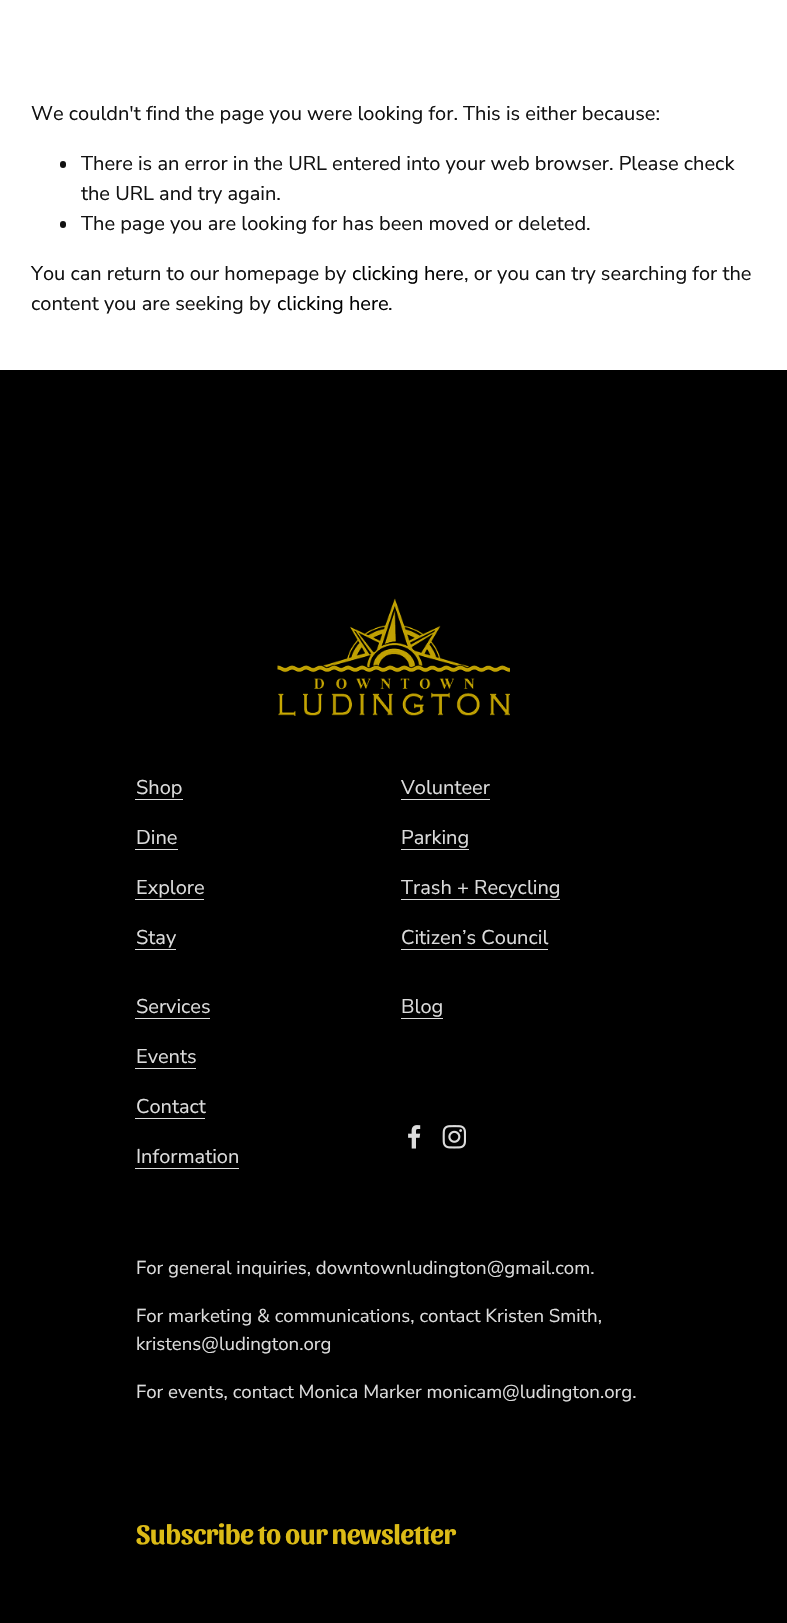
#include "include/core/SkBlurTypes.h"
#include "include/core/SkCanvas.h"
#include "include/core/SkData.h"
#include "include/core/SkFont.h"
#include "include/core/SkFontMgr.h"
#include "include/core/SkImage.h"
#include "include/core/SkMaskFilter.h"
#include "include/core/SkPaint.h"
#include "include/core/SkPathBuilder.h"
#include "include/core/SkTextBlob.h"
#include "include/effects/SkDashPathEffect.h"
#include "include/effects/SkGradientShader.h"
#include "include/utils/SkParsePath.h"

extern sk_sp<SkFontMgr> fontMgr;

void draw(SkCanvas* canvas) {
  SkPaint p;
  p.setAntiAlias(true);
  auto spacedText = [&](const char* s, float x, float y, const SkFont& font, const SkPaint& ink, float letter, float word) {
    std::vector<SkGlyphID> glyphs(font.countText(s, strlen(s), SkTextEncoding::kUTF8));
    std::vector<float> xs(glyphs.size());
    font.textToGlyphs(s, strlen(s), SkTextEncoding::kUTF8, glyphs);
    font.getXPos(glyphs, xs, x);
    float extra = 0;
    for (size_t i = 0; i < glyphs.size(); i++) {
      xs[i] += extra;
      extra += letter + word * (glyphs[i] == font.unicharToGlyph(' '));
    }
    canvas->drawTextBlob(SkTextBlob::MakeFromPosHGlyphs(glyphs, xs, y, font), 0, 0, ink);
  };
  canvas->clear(SK_ColorWHITE);
  p.setColor(SkColorSetRGB(18, 18, 18));
  canvas->drawRoundRect(SkRect::MakeLTRB(60, 161, 66, 168), 3, 3, p);
  canvas->drawRoundRect(SkRect::MakeLTRB(60, 221, 66, 228), 3, 3, p);
  p.setColor(SK_ColorBLACK);
  canvas->drawRect(SkRect::MakeLTRB(0, 370, 787, 1623), p);
  canvas->drawImageRect(SkImages::DeferredFromEncodedData(SkData::MakeFromFileName("images/1.png")), SkRect::MakeLTRB(277, 598, 510, 716), SkSamplingOptions());
  p.setColor(SkColorSetRGB(220, 220, 220));
  canvas->drawRect(SkRect::MakeLTRB(135, 799, 183, 800), p);
  canvas->drawRect(SkRect::MakeLTRB(135, 849, 178, 850), p);
  canvas->drawRect(SkRect::MakeLTRB(135, 899, 204, 900), p);
  canvas->drawRect(SkRect::MakeLTRB(135, 949, 176, 950), p);
  canvas->drawRect(SkRect::MakeLTRB(401, 799, 490, 800), p);
  canvas->drawRect(SkRect::MakeLTRB(401, 849, 469, 850), p);
  canvas->drawRect(SkRect::MakeLTRB(401, 899, 560, 900), p);
  canvas->drawRect(SkRect::MakeLTRB(401, 949, 548, 950), p);
  canvas->drawRect(SkRect::MakeLTRB(135, 1018, 210, 1019), p);
  canvas->drawRect(SkRect::MakeLTRB(135, 1068, 196, 1069), p);
  canvas->drawRect(SkRect::MakeLTRB(135, 1118, 205, 1119), p);
  canvas->drawRect(SkRect::MakeLTRB(135, 1168, 239, 1169), p);
  canvas->drawRect(SkRect::MakeLTRB(401, 1018, 443, 1019), p);
  canvas->drawImageRect(SkImages::DeferredFromEncodedData(SkData::MakeFromFileName("images/2.png")), SkRect::MakeLTRB(408, 1125, 421, 1149), SkSamplingOptions());
  canvas->drawImageRect(SkImages::DeferredFromEncodedData(SkData::MakeFromFileName("images/3.png")), SkRect::MakeLTRB(442, 1125, 466, 1149), SkSamplingOptions());
  SkFont font1(fontMgr->matchFamilyStyle("Nunito Sans", SkFontStyle::Normal()), 20);
  font1.setSubpixel(true);
  p.setColor(SkColorSetRGB(18, 18, 18));
  canvas->drawString("We couldn't find the page you were looking for. This is either because:", 31, 120, font1, p);
  canvas->drawString("There is an error in the URL entered into your web browser. Please check", 81, 170, font1, p);
  canvas->drawString("the URL and try again.", 81, 200, font1, p);
  canvas->drawString("The page you are looking for has been moved or deleted.", 81, 230, font1, p);
  canvas->drawString("You can return to our homepage by", 31, 280, font1, p);
  p.setColor(SK_ColorBLACK);
  canvas->drawString("clicking here", 352, 280, font1, p);
  p.setColor(SkColorSetRGB(18, 18, 18));
  canvas->drawString(", or you can try searching for the", 464, 280, font1, p);
  canvas->drawString("content you are seeking by", 31, 310, font1, p);
  p.setColor(SK_ColorBLACK);
  canvas->drawString("clicking here", 277, 310, font1, p);
  p.setColor(SkColorSetRGB(18, 18, 18));
  canvas->drawString(".", 388, 310, font1, p);
  p.setColor(SkColorSetRGB(220, 220, 220));
  canvas->drawString("Shop", 136, 794, font1, p);
  canvas->drawString("Dine", 136, 844, font1, p);
  canvas->drawString("Explore", 136, 894, font1, p);
  canvas->drawString("Stay", 136, 944, font1, p);
  canvas->drawString("Volunteer", 401, 794, font1, p);
  canvas->drawString("Parking", 401, 844, font1, p);
  canvas->drawString("Trash + Recycling", 401, 894, font1, p);
  canvas->drawString("Citizen’s Council", 401, 944, font1, p);
  canvas->drawString("Services", 136, 1013, font1, p);
  canvas->drawString("Events", 136, 1063, font1, p);
  canvas->drawString("Contact", 136, 1113, font1, p);
  canvas->drawString("Information", 136, 1163, font1, p);
  canvas->drawString("Blog", 401, 1013, font1, p);
  SkFont font2(fontMgr->matchFamilyStyle("Nunito Sans", SkFontStyle::Normal()), 18.65f);
  font2.setSubpixel(true);
  canvas->drawString("For general inquiries, downtownludington@gmail.com.", 136, 1274, font2, p);
  canvas->drawString("For marketing & communications, contact Kristen Smith,", 136, 1322, font2, p);
  canvas->drawString("kristens@ludington.org", 136, 1350, font2, p);
  canvas->drawString("For events, contact Monica Marker monicam@ludington.org.", 136, 1398, font2, p);
  SkFont font3(fontMgr->matchFamilyStyle("Sansita", SkFontStyle::Bold()), 28.1f);
  font3.setSubpixel(true);
  p.setColor(SkColorSetRGB(220, 187, 22));
  spacedText("Subscribe to our newsletter", 136, 1544, font3, p, -0.55f, 0);
}
